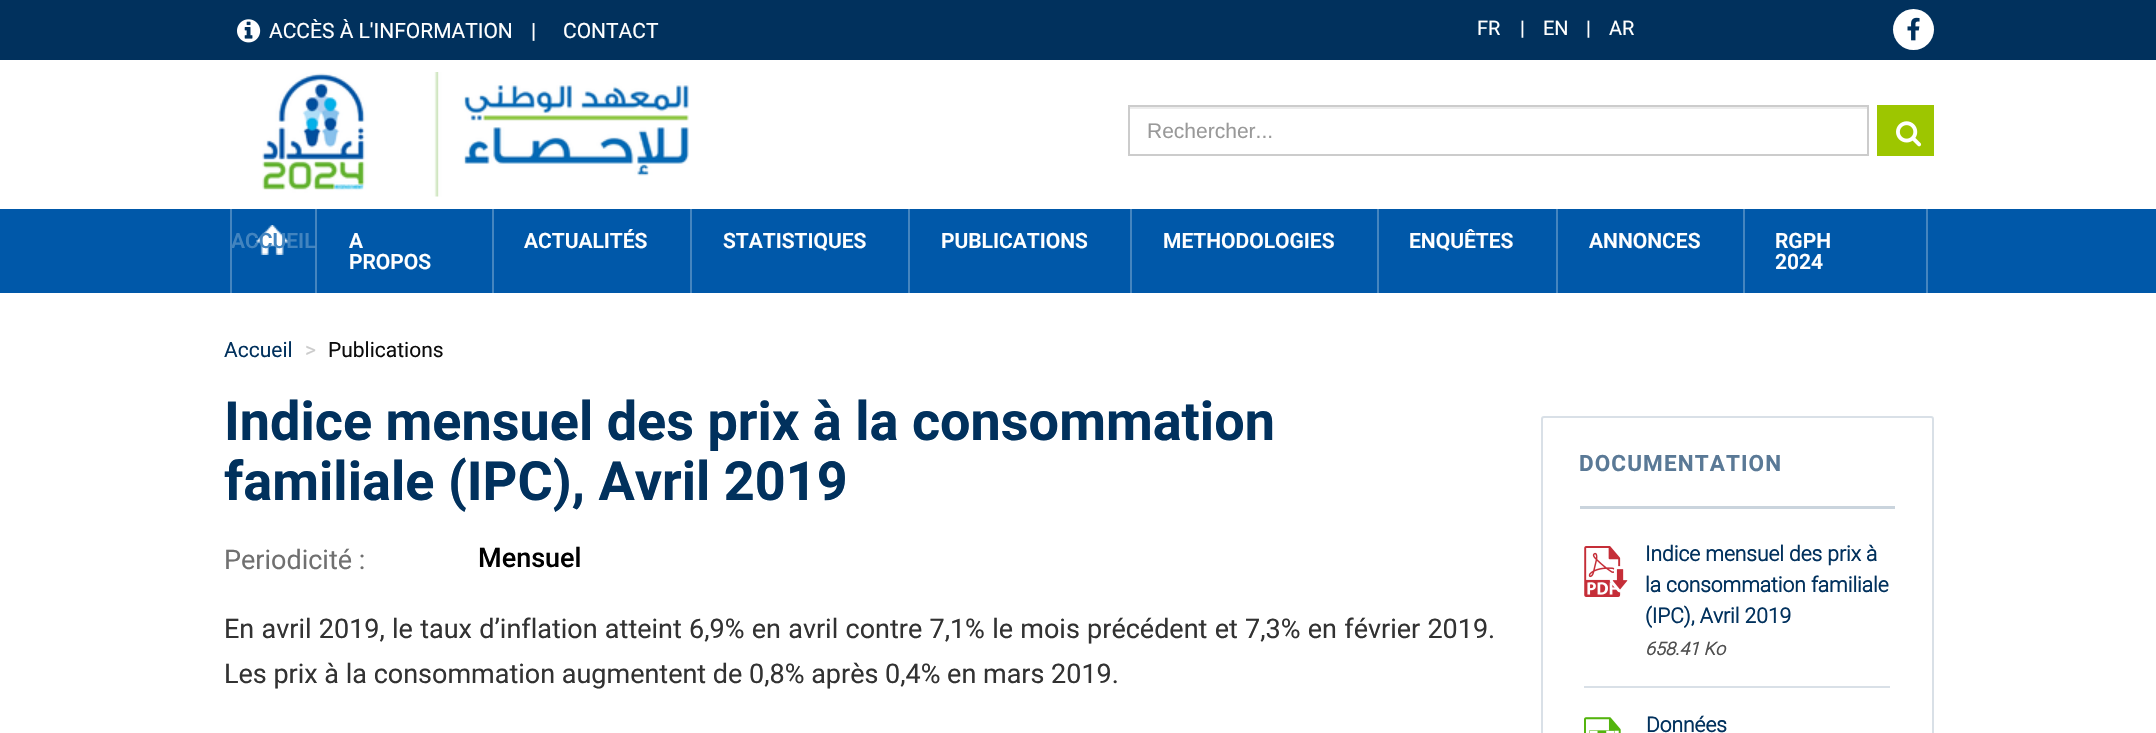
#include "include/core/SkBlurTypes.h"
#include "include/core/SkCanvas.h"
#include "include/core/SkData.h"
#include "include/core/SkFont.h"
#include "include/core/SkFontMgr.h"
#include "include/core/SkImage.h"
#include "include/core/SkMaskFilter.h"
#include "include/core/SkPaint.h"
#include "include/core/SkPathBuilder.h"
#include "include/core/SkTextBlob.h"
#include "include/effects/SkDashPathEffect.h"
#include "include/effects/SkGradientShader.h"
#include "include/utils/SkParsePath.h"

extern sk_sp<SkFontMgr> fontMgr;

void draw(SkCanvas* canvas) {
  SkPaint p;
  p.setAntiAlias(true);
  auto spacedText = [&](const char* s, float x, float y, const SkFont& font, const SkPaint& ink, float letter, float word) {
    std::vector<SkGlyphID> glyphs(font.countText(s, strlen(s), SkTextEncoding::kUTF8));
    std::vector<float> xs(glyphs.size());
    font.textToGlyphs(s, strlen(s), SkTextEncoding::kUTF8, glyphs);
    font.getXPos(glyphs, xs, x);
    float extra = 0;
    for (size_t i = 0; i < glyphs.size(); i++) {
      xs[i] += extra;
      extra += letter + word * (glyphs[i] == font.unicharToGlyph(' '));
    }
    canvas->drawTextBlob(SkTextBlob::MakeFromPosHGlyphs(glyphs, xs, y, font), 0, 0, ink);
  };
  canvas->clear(SK_ColorWHITE);
  p.setColor(SkColorSetRGB(1, 49, 93));
  canvas->drawRect(SkRect::MakeLTRB(0, 0, 2156, 60), p);
  canvas->drawImageRect(SkImages::DeferredFromEncodedData(SkData::MakeFromFileName("images/1.png")), SkRect::MakeLTRB(237, 19, 261, 43), SkSamplingOptions());
  p.setColor(SK_ColorWHITE);
  canvas->drawCircle(1913.5f, 29.5f, 20.5f, p);
  canvas->drawImageRect(SkImages::DeferredFromEncodedData(SkData::MakeFromFileName("images/2.png")), SkRect::MakeLTRB(1907, 17, 1920, 41), SkSamplingOptions());
  canvas->drawImageRect(SkImages::DeferredFromEncodedData(SkData::MakeFromFileName("images/3.png")), SkRect::MakeLTRB(262, 72, 689, 197), SkSamplingOptions());
  p.setColor(SkColorSetRGB(236, 236, 236));
  canvas->drawRect(SkRect::MakeLTRB(1130, 107, 1868, 109), p);
  p.setStyle(SkPaint::kStroke_Style);
  p.setStrokeWidth(2);
  p.setColor(SkColorSetRGB(204, 204, 204));
  canvas->drawRect(SkRect::MakeLTRB(1129, 106, 1868, 155), p);
  p.setStyle(SkPaint::kFill_Style);
  p.setColor(SkColorSetRGB(157, 198, 0));
  canvas->drawRect(SkRect::MakeLTRB(1877, 105, 1934, 156), p);
  canvas->drawImageRect(SkImages::DeferredFromEncodedData(SkData::MakeFromFileName("images/4.png")), SkRect::MakeLTRB(1896, 121, 1922, 147), SkSamplingOptions());
  p.setColor(SkColorSetRGB(0, 88, 169));
  canvas->drawRect(SkRect::MakeLTRB(0, 209, 2156, 293), p);
  p.setColor(SkColorSetRGB(69, 133, 191));
  canvas->drawRect(SkRect::MakeLTRB(230, 209, 232, 293), p);
  canvas->drawImageRect(SkImages::DeferredFromEncodedData(SkData::MakeFromFileName("images/5.png")), SkRect::MakeLTRB(256, 225, 289, 255), SkSamplingOptions());
  canvas->drawRect(SkRect::MakeLTRB(492, 209, 494, 293), p);
  canvas->drawRect(SkRect::MakeLTRB(690, 209, 692, 293), p);
  canvas->drawRect(SkRect::MakeLTRB(908, 209, 910, 293), p);
  canvas->drawRect(SkRect::MakeLTRB(1130, 209, 1132, 293), p);
  canvas->drawRect(SkRect::MakeLTRB(1377, 209, 1379, 293), p);
  canvas->drawRect(SkRect::MakeLTRB(1556, 209, 1558, 293), p);
  canvas->drawRect(SkRect::MakeLTRB(1926, 209, 1928, 293), p);
  canvas->drawRect(SkRect::MakeLTRB(1743, 209, 1745, 293), p);
  p.setStyle(SkPaint::kStroke_Style);
  p.setColor(SkColorSetRGB(217, 224, 231));
  canvas->drawRoundRect(SkRect::MakeLTRB(1542, 417, 1933, 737), 2, 2, p);
  p.setStyle(SkPaint::kFill_Style);
  p.setColor(SkColorSetRGB(202, 212, 221));
  canvas->drawRect(SkRect::MakeLTRB(1580, 506, 1895, 509), p);
  p.setColor(SkColorSetRGB(217, 224, 231));
  canvas->drawRect(SkRect::MakeLTRB(1584, 686, 1890, 688), p);
  canvas->drawImageRect(SkImages::DeferredFromEncodedData(SkData::MakeFromFileName("images/6.png")), SkRect::MakeLTRB(1584, 546, 1628, 597), SkSamplingOptions());
  canvas->drawImageRect(SkImages::DeferredFromEncodedData(SkData::MakeFromFileName("images/7.png")), SkRect::MakeLTRB(1584, 717, 1621, 733), SkSamplingOptions());
  SkFont font1(fontMgr->matchFamilyStyle("Roboto", SkFontStyle::Normal()), 21);
  font1.setSubpixel(true);
  p.setColor(SK_ColorWHITE);
  canvas->drawString("ACCÈS À L'INFORMATION", 269, 38, font1, p);
  canvas->drawString("|", 531, 38, font1, p);
  canvas->drawString("CONTACT", 563, 38, font1, p);
  SkFont font2(fontMgr->matchFamilyStyle("Roboto", SkFontStyle::Normal()), 20);
  font2.setSubpixel(true);
  canvas->drawString("FR", 1477, 35, font2, p);
  canvas->drawString("|", 1520, 35, font2, p);
  canvas->drawString("EN", 1543, 35, font2, p);
  canvas->drawString("|", 1586, 35, font2, p);
  canvas->drawString("AR", 1609, 35, font2, p);
  SkFont font3(fontMgr->matchFamilyStyle("Liberation Sans", SkFontStyle::Normal()), 21);
  font3.setSubpixel(true);
  p.setColor(SkColorSetRGB(153, 153, 153));
  canvas->drawString("Rechercher...", 1147, 138, font3, p);
  SkFont font4(fontMgr->matchFamilyStyle("Roboto", SkFontStyle(600, SkFontStyle::kNormal_Width, SkFontStyle::kUpright_Slant)), 21);
  font4.setSubpixel(true);
  p.setColor(SkColorSetRGB(66, 132, 191));
  canvas->drawString("ACCUEIL", 231, 248, font4, p);
  p.setColor(SkColorSetARGB(71, 247, 247, 247));
  canvas->drawRect(SkRect::MakeLTRB(315, 209, 317, 293), p);
  p.setColor(SK_ColorWHITE);
  canvas->drawString("A", 349, 248, font4, p);
  canvas->drawString("PROPOS", 349, 269, font4, p);
  canvas->drawString("ACTUALITÉS", 524, 248, font4, p);
  canvas->drawString("STATISTIQUES", 723, 248, font4, p);
  canvas->drawString("PUBLICATIONS", 941, 248, font4, p);
  canvas->drawString("METHODOLOGIES", 1163, 248, font4, p);
  canvas->drawString("ENQUÊTES", 1409, 248, font4, p);
  canvas->drawString("ANNONCES", 1589, 248, font4, p);
  canvas->drawString("RGPH", 1775, 248, font4, p);
  canvas->drawString("2024", 1775, 269, font4, p);
  p.setColor(SkColorSetRGB(1, 49, 93));
  canvas->drawString("Accueil", 224, 357, font1, p);
  p.setColor(SkColorSetRGB(204, 204, 204));
  canvas->drawString(">", 305, 357, font1, p);
  p.setColor(SkColorSetRGB(12, 12, 12));
  canvas->drawString("Publications", 328, 357, font1, p);
  SkFont font5(fontMgr->matchFamilyStyle("Roboto", SkFontStyle::Bold()), 54);
  font5.setSubpixel(true);
  p.setColor(SkColorSetRGB(1, 49, 93));
  canvas->drawString("Indice mensuel des prix à la consommation", 224, 440, font5, p);
  canvas->drawString("familiale (IPC), Avril 2019", 224, 500, font5, p);
  SkFont font6(fontMgr->matchFamilyStyle("Roboto", SkFontStyle::Normal()), 27);
  font6.setSubpixel(true);
  p.setColor(SkColorSetRGB(112, 112, 112));
  canvas->drawString("Periodicité :", 224, 569, font6, p);
  SkFont font7(fontMgr->matchFamilyStyle("Roboto", SkFontStyle(500, SkFontStyle::kNormal_Width, SkFontStyle::kUpright_Slant)), 27);
  font7.setSubpixel(true);
  p.setColor(SK_ColorBLACK);
  canvas->drawString("Mensuel", 478, 567, font7, p);
  p.setColor(SkColorSetRGB(50, 50, 50));
  spacedText("En avril 2019, le taux d’inflation atteint 6,9% en avril contre 7,1% le mois précédent et 7,3% en février 2019.", 224, 638, font6, p, 0, 0.6f);
  canvas->drawString("Les prix à la consommation augmentent de 0,8% après 0,4% en mars 2019.", 224, 683, font6, p);
  SkFont font8(fontMgr->matchFamilyStyle("Roboto", SkFontStyle::Bold()), 22.5f);
  font8.setSubpixel(true);
  p.setColor(SkColorSetRGB(90, 121, 150));
  spacedText("DOCUMENTATION", 1579, 471, font8, p, 1.1f, 0);
  SkFont font9(fontMgr->matchFamilyStyle("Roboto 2", SkFontStyle::Bold()), 21);
  font9.setSubpixel(true);
  p.setColor(SkColorSetRGB(1, 49, 93));
  canvas->drawString("Indice mensuel des prix à", 1645, 561, font9, p);
  canvas->drawString("la consommation familiale", 1645, 592, font9, p);
  canvas->drawString("(IPC), Avril 2019", 1645, 623, font9, p);
  SkFont font10(fontMgr->matchFamilyStyle("Roboto", SkFontStyle::BoldItalic()), 18);
  font10.setSubpixel(true);
  p.setColor(SkColorSetRGB(79, 79, 79));
  canvas->drawString("658.41 Ko", 1645, 655, font10, p);
  p.setColor(SkColorSetRGB(1, 49, 93));
  canvas->drawString("Données", 1646, 732, font9, p);
}
